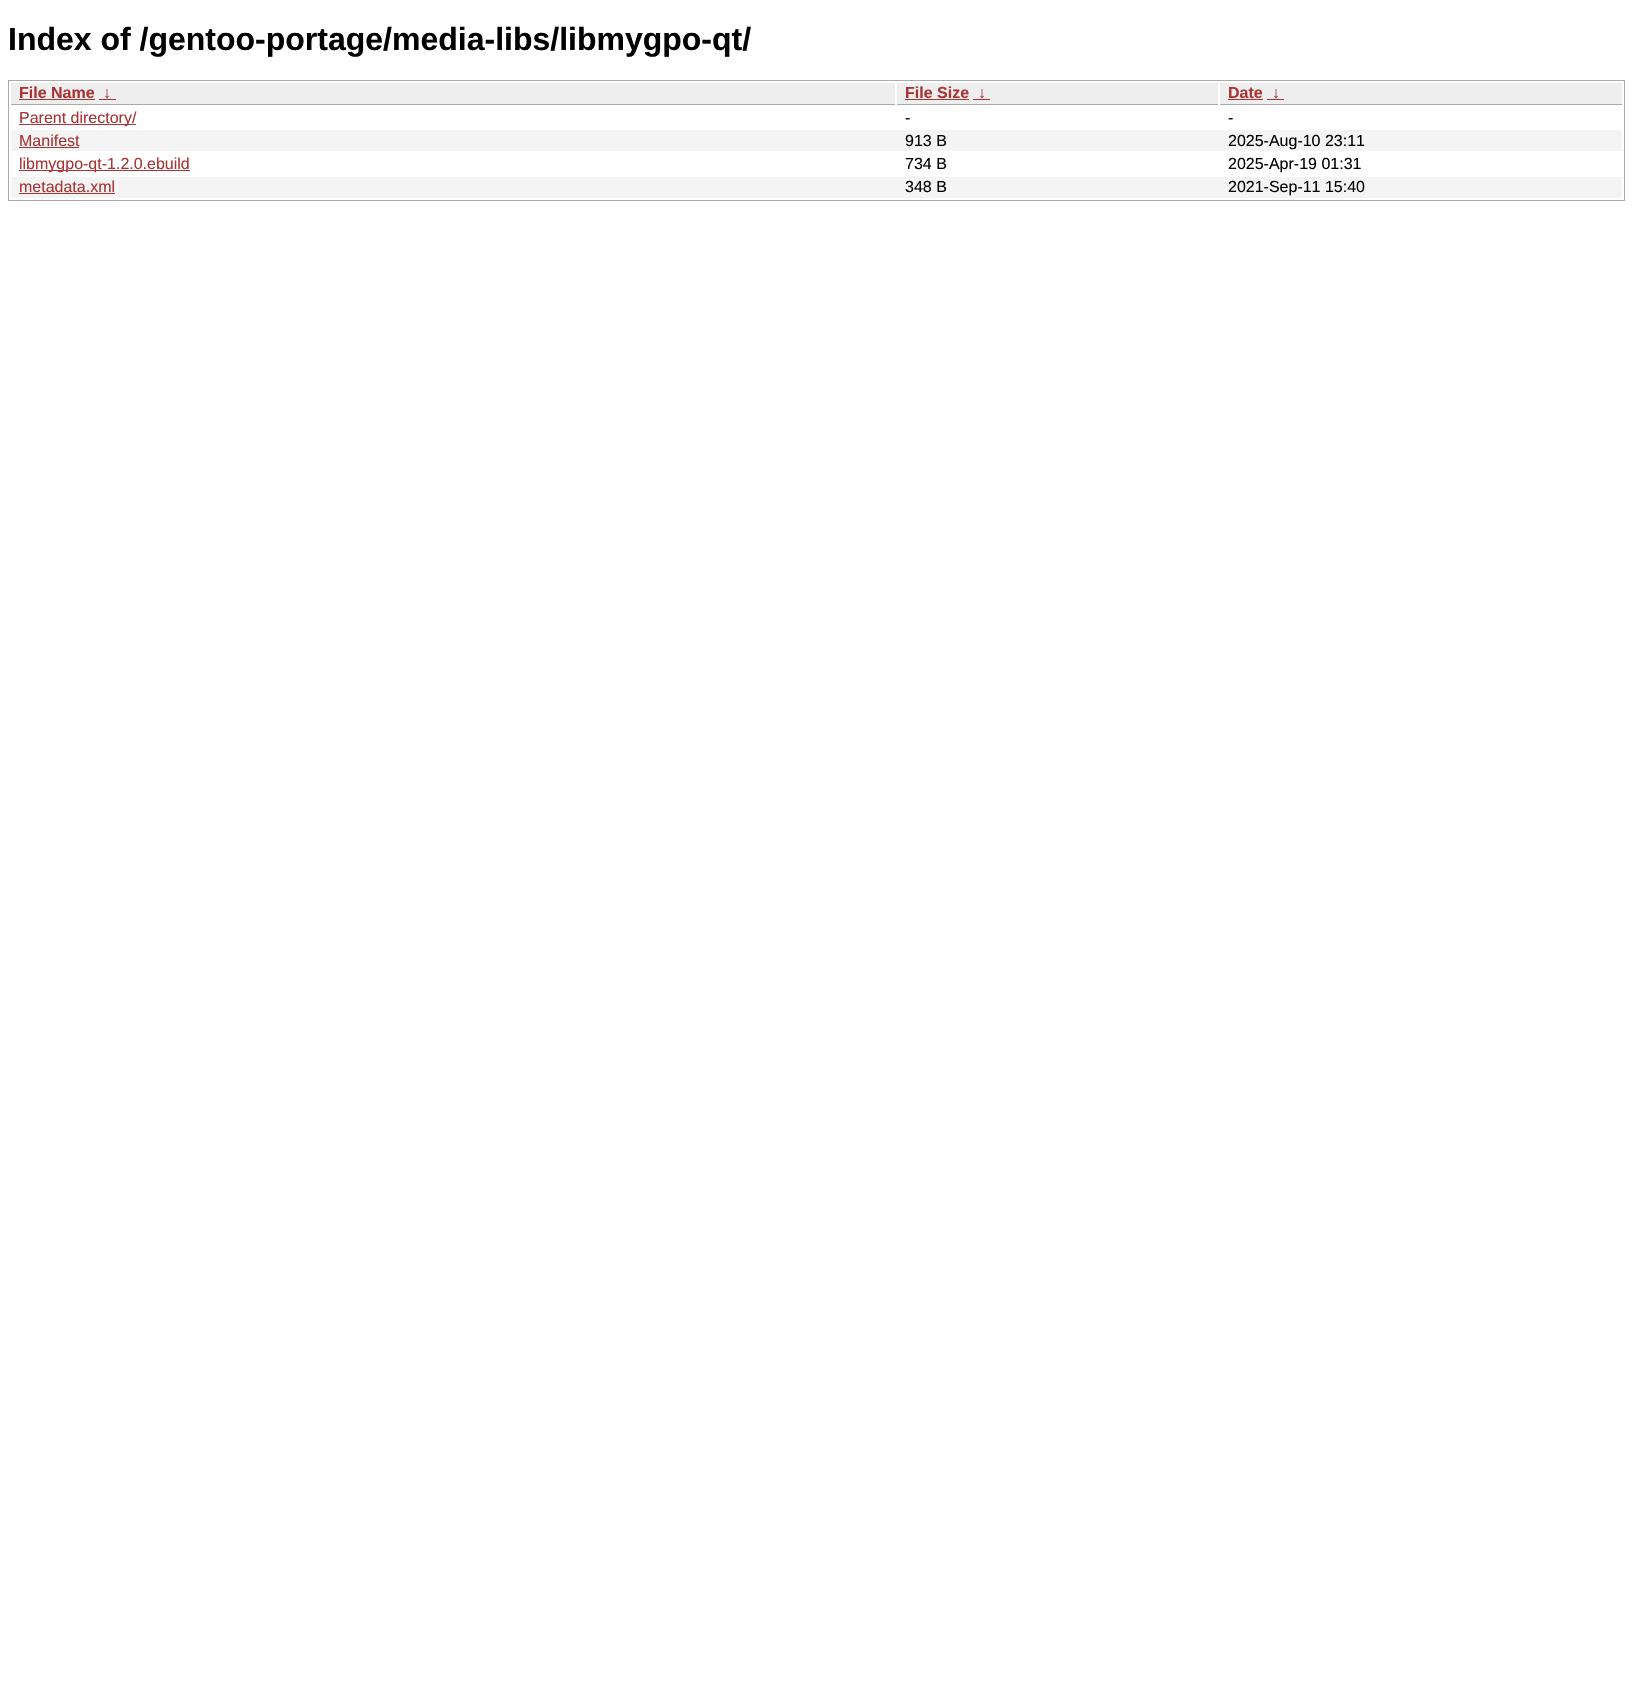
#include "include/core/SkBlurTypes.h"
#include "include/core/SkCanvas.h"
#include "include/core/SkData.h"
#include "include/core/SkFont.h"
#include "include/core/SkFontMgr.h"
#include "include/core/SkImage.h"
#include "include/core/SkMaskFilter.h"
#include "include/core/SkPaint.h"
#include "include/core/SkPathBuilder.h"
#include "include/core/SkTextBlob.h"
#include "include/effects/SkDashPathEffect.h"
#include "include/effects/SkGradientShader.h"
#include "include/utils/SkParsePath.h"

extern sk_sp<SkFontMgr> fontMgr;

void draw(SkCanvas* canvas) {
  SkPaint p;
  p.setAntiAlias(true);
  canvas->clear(SK_ColorWHITE);
  p.setStyle(SkPaint::kStroke_Style);
  p.setStrokeWidth(1);
  p.setColor(SkColorSetRGB(170, 170, 170));
  canvas->drawRect(SkRect::MakeLTRB(8.5f, 80.5f, 1624.5f, 200.5f), p);
  p.setStyle(SkPaint::kFill_Style);
  p.setColor(SkColorSetRGB(238, 238, 238));
  canvas->drawRect(SkRect::MakeLTRB(11, 83, 895, 104), p);
  p.setColor(SkColorSetRGB(170, 170, 170));
  canvas->drawRect(SkRect::MakeLTRB(11, 104, 895, 105), p);
  p.setColor(SkColorSetRGB(170, 51, 51));
  canvas->drawRect(SkRect::MakeLTRB(19, 99, 95, 100), p);
  canvas->drawRect(SkRect::MakeLTRB(99, 99, 116, 100), p);
  p.setColor(SkColorSetRGB(238, 238, 238));
  canvas->drawRect(SkRect::MakeLTRB(897, 83, 1218, 104), p);
  p.setColor(SkColorSetRGB(170, 170, 170));
  canvas->drawRect(SkRect::MakeLTRB(897, 104, 1218, 105), p);
  p.setColor(SkColorSetRGB(170, 51, 51));
  canvas->drawRect(SkRect::MakeLTRB(905, 99, 969, 100), p);
  canvas->drawRect(SkRect::MakeLTRB(973, 99, 990, 100), p);
  p.setColor(SkColorSetRGB(238, 238, 238));
  canvas->drawRect(SkRect::MakeLTRB(1220, 83, 1622, 104), p);
  p.setColor(SkColorSetRGB(170, 170, 170));
  canvas->drawRect(SkRect::MakeLTRB(1220, 104, 1622, 105), p);
  p.setColor(SkColorSetRGB(170, 51, 51));
  canvas->drawRect(SkRect::MakeLTRB(1228, 99, 1263, 100), p);
  canvas->drawRect(SkRect::MakeLTRB(1267, 99, 1284, 100), p);
  canvas->drawRect(SkRect::MakeLTRB(19, 124, 136, 125), p);
  p.setColor(SkColorSetRGB(244, 244, 244));
  canvas->drawRect(SkRect::MakeLTRB(11, 130, 1622, 151), p);
  p.setColor(SkColorSetRGB(170, 51, 51));
  canvas->drawRect(SkRect::MakeLTRB(19, 147, 79, 148), p);
  canvas->drawRect(SkRect::MakeLTRB(19, 170, 190, 171), p);
  p.setColor(SkColorSetRGB(244, 244, 244));
  canvas->drawRect(SkRect::MakeLTRB(11, 177, 1622, 198), p);
  p.setColor(SkColorSetRGB(170, 51, 51));
  canvas->drawRect(SkRect::MakeLTRB(19, 193, 115, 194), p);
  SkFont font1(fontMgr->matchFamilyStyle("Liberation Sans", SkFontStyle::Bold()), 32);
  font1.setSubpixel(true);
  p.setColor(SK_ColorBLACK);
  canvas->drawString("Index of /gentoo-portage/media-libs/libmygpo-qt/", 8, 50, font1, p);
  SkFont font2(fontMgr->matchFamilyStyle("Liberation Sans", SkFontStyle::Bold()), 16);
  font2.setSubpixel(true);
  p.setColor(SkColorSetRGB(170, 51, 51));
  canvas->drawString("File Name", 19, 98, font2, p);
  canvas->drawString("↓", 103, 98, font2, p);
  canvas->drawString("File Size", 905, 98, font2, p);
  canvas->drawString("↓", 978, 98, font2, p);
  canvas->drawString("Date", 1228, 98, font2, p);
  canvas->drawString("↓", 1272, 98, font2, p);
  SkFont font3(fontMgr->matchFamilyStyle("Liberation Sans", SkFontStyle::Normal()), 16);
  font3.setSubpixel(true);
  canvas->drawString("Parent directory/", 19, 123, font3, p);
  p.setColor(SK_ColorBLACK);
  canvas->drawString("-", 905, 123, font3, p);
  canvas->drawString("-", 1228, 123, font3, p);
  p.setColor(SkColorSetRGB(170, 51, 51));
  canvas->drawString("Manifest", 19, 146, font3, p);
  p.setColor(SK_ColorBLACK);
  canvas->drawString("913 B", 905, 146, font3, p);
  canvas->drawString("2025-Aug-10 23:11", 1228, 146, font3, p);
  p.setColor(SkColorSetRGB(170, 51, 51));
  canvas->drawString("libmygpo-qt-1.2.0.ebuild", 19, 169, font3, p);
  p.setColor(SK_ColorBLACK);
  canvas->drawString("734 B", 905, 169, font3, p);
  canvas->drawString("2025-Apr-19 01:31", 1228, 169, font3, p);
  p.setColor(SkColorSetRGB(170, 51, 51));
  canvas->drawString("metadata.xml", 19, 192, font3, p);
  p.setColor(SK_ColorBLACK);
  canvas->drawString("348 B", 905, 192, font3, p);
  canvas->drawString("2021-Sep-11 15:40", 1228, 192, font3, p);
}
